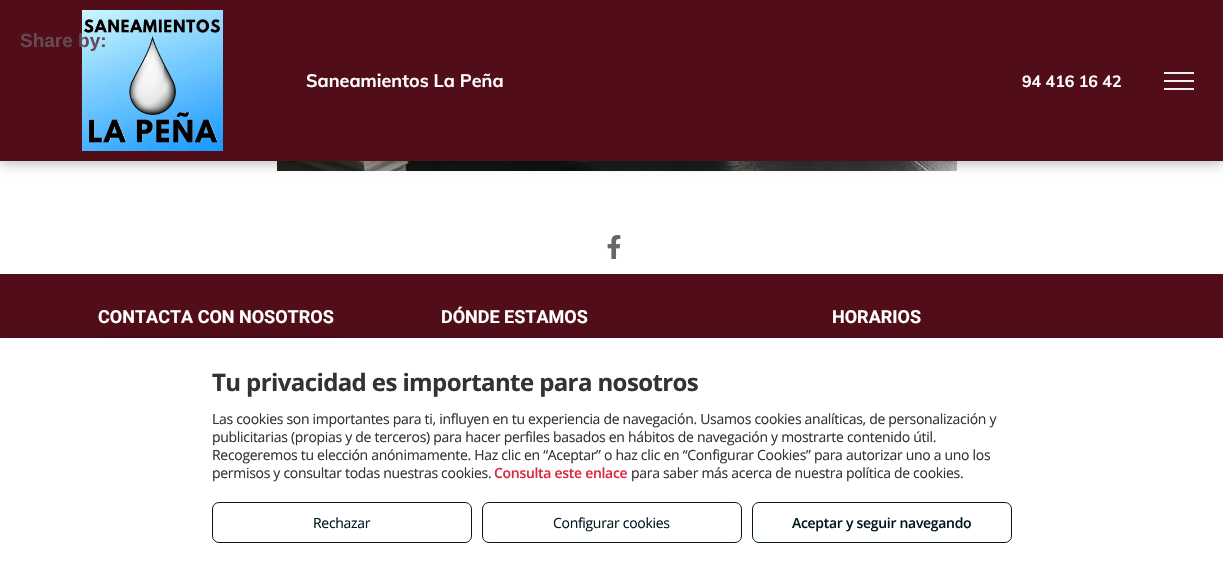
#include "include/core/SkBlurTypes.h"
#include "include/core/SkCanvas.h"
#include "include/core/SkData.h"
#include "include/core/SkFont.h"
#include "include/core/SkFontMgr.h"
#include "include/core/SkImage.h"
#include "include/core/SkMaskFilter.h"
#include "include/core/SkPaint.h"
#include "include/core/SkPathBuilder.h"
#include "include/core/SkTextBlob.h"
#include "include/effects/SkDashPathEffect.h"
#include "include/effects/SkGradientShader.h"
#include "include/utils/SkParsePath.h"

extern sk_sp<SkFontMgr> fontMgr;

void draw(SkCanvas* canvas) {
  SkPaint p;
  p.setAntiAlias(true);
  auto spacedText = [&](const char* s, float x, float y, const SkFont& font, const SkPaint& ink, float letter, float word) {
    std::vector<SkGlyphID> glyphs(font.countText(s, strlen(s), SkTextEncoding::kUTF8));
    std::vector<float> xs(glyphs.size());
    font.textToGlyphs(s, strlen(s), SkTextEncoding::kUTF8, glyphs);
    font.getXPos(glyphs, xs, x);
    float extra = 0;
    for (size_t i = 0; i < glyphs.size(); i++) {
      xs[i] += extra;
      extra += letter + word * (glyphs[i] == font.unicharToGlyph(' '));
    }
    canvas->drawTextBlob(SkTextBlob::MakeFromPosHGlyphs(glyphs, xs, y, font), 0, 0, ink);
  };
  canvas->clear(SK_ColorWHITE);
  canvas->drawImageRect(SkImages::DeferredFromEncodedData(SkData::MakeFromFileName("images/2.png")), SkRect::MakeLTRB(277, 161, 957, 171), SkSamplingOptions());
  p.setColor(SkColorSetARGB(64, 0, 0, 0));
  p.setMaskFilter(SkMaskFilter::MakeBlur(kNormal_SkBlurStyle, 5.5f));
  canvas->drawRect(SkRect::MakeLTRB(0, 3, 1223, 164), p);
  p.setMaskFilter(nullptr);
  p.setColor(SkColorSetRGB(81, 13, 24));
  canvas->drawRect(SkRect::MakeLTRB(0, 0, 1223, 161), p);
  canvas->drawImageRect(SkImages::DeferredFromEncodedData(SkData::MakeFromFileName("images/1.png")), SkRect::MakeLTRB(82, 10, 223, 151), SkSamplingOptions());
  p.setColor(SkColorSetRGB(240, 240, 240));
  canvas->drawRect(SkRect::MakeLTRB(1164, 72, 1194, 74), p);
  canvas->drawRect(SkRect::MakeLTRB(1164, 80, 1194, 82), p);
  canvas->drawRect(SkRect::MakeLTRB(1164, 88, 1194, 90), p);
  canvas->drawImageRect(SkImages::DeferredFromEncodedData(SkData::MakeFromFileName("images/3.png")), SkRect::MakeLTRB(607, 235, 621, 259), SkSamplingOptions());
  p.setColor(SkColorSetRGB(81, 13, 24));
  canvas->drawRect(SkRect::MakeLTRB(0, 274, 1223, 338), p);
  p.setColor(SkColorSetARGB(64, 0, 0, 0));
  p.setMaskFilter(SkMaskFilter::MakeBlur(kNormal_SkBlurStyle, 5.5f));
  canvas->drawRoundRect(SkRect::MakeLTRB(98, 342, 342, 393), 5, 5, p);
  p.setMaskFilter(nullptr);
  p.setColor(SkColorSetARGB(26, 0, 0, 0));
  p.setMaskFilter(SkMaskFilter::MakeBlur(kNormal_SkBlurStyle, 5));
  canvas->drawRect(SkRect::MakeLTRB(0, 336, 1223, 561), p);
  p.setMaskFilter(nullptr);
  p.setColor(SK_ColorWHITE);
  canvas->drawRect(SkRect::MakeLTRB(0, 338, 1223, 563), p);
  p.setStyle(SkPaint::kStroke_Style);
  p.setStrokeWidth(1);
  p.setColor(SkColorSetRGB(3, 24, 30));
  canvas->drawRoundRect(SkRect::MakeLTRB(212.5f, 502.5f, 471.5f, 542.5f), 6.5f, 6.5f, p);
  canvas->drawRoundRect(SkRect::MakeLTRB(482.5f, 502.5f, 741.5f, 542.5f), 6.5f, 6.5f, p);
  canvas->drawRoundRect(SkRect::MakeLTRB(752.5f, 502.5f, 1011.5f, 542.5f), 6.5f, 6.5f, p);
  SkFont font1(fontMgr->matchFamilyStyle("Liberation Sans", SkFontStyle::Bold()), 19);
  font1.setSubpixel(true);
  p.setStyle(SkPaint::kFill_Style);
  p.setColor(SkColorSetRGB(104, 71, 85));
  canvas->drawString("Share by:", 20, 47, font1, p);
  SkFont font2(fontMgr->matchFamilyStyle("Muli", SkFontStyle::Bold()), 18);
  font2.setSubpixel(true);
  p.setColor(SK_ColorWHITE);
  canvas->drawString("Saneamientos La Peña", 306, 87, font2, p);
  SkFont font3(fontMgr->matchFamilyStyle("Muli", SkFontStyle::Bold()), 16);
  font3.setSubpixel(true);
  canvas->drawString("94 416 16 42", 1022, 87, font3, p);
  SkFont font4(fontMgr->matchFamilyStyle("Roboto", SkFontStyle::Bold()), 18);
  font4.setSubpixel(true);
  canvas->drawString("CONTACTA CON NOSOTROS", 98, 323, font4, p);
  canvas->drawString("DÓNDE ESTAMOS", 441, 323, font4, p);
  canvas->drawString("HORARIOS", 832, 323, font4, p);
  SkFont font5(fontMgr->matchFamilyStyle("Open Sans", SkFontStyle::Bold()), 24);
  font5.setSubpixel(true);
  p.setColor(SkColorSetRGB(51, 51, 51));
  spacedText("Tu privacidad es importante para nosotros", 212, 391, font5, p, -0.6f, 0);
  SkFont font6(fontMgr->matchFamilyStyle("Open Sans", SkFontStyle::Normal()), 14);
  font6.setSubpixel(true);
  spacedText("Las cookies son importantes para ti, influyen en tu experiencia de navegación. Usamos cookies analíticas, de personalización y", 212, 424, font6, p, -0.3f, 0);
  spacedText("publicitarias (propias y de terceros) para hacer perfiles basados en hábitos de navegación y mostrarte contenido útil.", 212, 442, font6, p, -0.3f, 0);
  spacedText("Recogeremos tu elección anónimamente. Haz clic en “Aceptar” o haz clic en “Configurar Cookies” para autorizar uno a uno los", 212, 460, font6, p, -0.3f, 0);
  spacedText("permisos y consultar todas nuestras cookies.", 212, 478, font6, p, -0.3f, 0);
  SkFont font7(fontMgr->matchFamilyStyle("Open Sans", SkFontStyle(600, SkFontStyle::kNormal_Width, SkFontStyle::kUpright_Slant)), 14);
  font7.setSubpixel(true);
  p.setColor(SkColorSetRGB(219, 39, 68));
  spacedText("Consulta este enlace", 494, 478, font7, p, -0.3f, 0);
  p.setColor(SkColorSetRGB(51, 51, 51));
  spacedText("para saber más acerca de nuestra política de cookies.", 631, 478, font6, p, -0.3f, 0);
  p.setColor(SkColorSetRGB(3, 24, 30));
  spacedText("Rechazar", 313, 528, font6, p, -0.3f, 0);
  spacedText("Configurar cookies", 553, 528, font6, p, -0.3f, 0);
  spacedText("Aceptar y seguir navegando", 792, 528, font7, p, -0.3f, 0);
}
